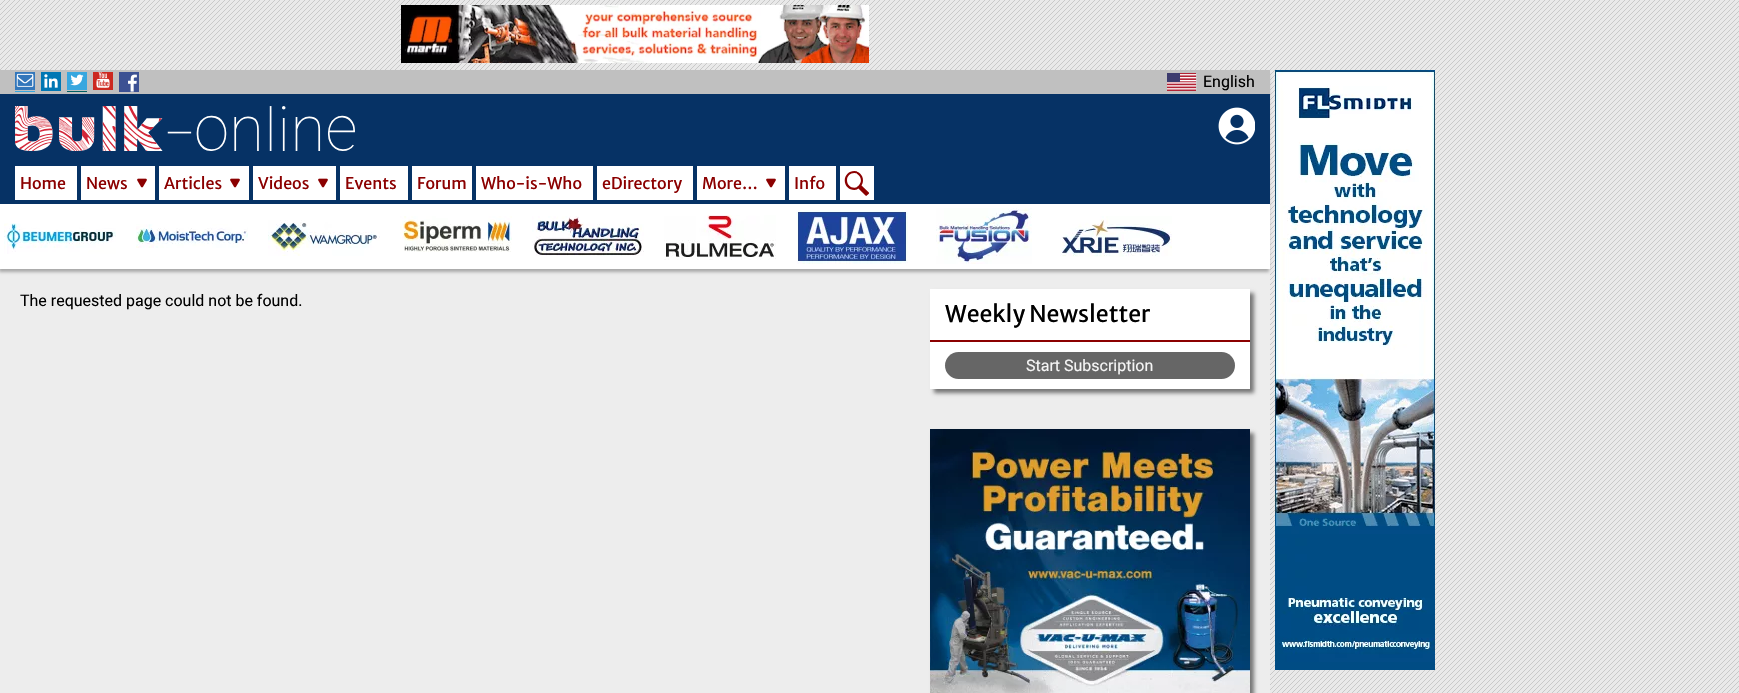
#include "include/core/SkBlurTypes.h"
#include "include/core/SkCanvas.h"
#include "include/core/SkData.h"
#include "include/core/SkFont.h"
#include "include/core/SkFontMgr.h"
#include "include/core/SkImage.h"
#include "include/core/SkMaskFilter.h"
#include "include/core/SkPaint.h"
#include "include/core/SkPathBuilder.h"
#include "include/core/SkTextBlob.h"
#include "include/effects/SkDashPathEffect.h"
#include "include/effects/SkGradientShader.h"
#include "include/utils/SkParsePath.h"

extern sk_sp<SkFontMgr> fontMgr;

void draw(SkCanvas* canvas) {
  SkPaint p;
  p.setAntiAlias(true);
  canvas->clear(SK_ColorWHITE);
  canvas->drawImageRect(SkImages::DeferredFromEncodedData(SkData::MakeFromFileName("images/1.png")), SkRect::MakeLTRB(0, 0, 1739, 693), SkSamplingOptions());
  canvas->drawImageRect(SkImages::DeferredFromEncodedData(SkData::MakeFromFileName("images/2.png")), SkRect::MakeLTRB(401, 5, 869, 63), SkSamplingOptions());
  p.setColor(SkColorSetRGB(237, 237, 237));
  canvas->drawRect(SkRect::MakeLTRB(0, 269, 1270, 693), p);
  p.setColor(SkColorSetRGB(169, 169, 169));
  p.setMaskFilter(SkMaskFilter::MakeBlur(kNormal_SkBlurStyle, 1.5f));
  canvas->drawRect(SkRect::MakeLTRB(-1, 73, 1269, 272), p);
  p.setMaskFilter(nullptr);
  p.setColor(SkColorSetRGB(6, 50, 101));
  canvas->drawRect(SkRect::MakeLTRB(0, 94, 1270, 204), p);
  p.setColor(SkColorSetRGB(192, 192, 192));
  canvas->drawRect(SkRect::MakeLTRB(0, 70, 1270, 94), p);
  canvas->drawImageRect(SkImages::DeferredFromEncodedData(SkData::MakeFromFileName("images/3.png")), SkRect::MakeLTRB(15, 72, 35, 92), SkSamplingOptions());
  canvas->drawImageRect(SkImages::DeferredFromEncodedData(SkData::MakeFromFileName("images/4.png")), SkRect::MakeLTRB(41, 72, 61, 91), SkSamplingOptions());
  canvas->drawImageRect(SkImages::DeferredFromEncodedData(SkData::MakeFromFileName("images/5.png")), SkRect::MakeLTRB(67, 72, 87, 92), SkSamplingOptions());
  canvas->drawImageRect(SkImages::DeferredFromEncodedData(SkData::MakeFromFileName("images/6.png")), SkRect::MakeLTRB(93, 72, 113, 90), SkSamplingOptions());
  canvas->drawImageRect(SkImages::DeferredFromEncodedData(SkData::MakeFromFileName("images/7.png")), SkRect::MakeLTRB(119, 72, 139, 92), SkSamplingOptions());
  canvas->drawImageRect(SkImages::DeferredFromEncodedData(SkData::MakeFromFileName("images/8.png")), SkRect::MakeLTRB(1167, 73, 1197, 91), SkSamplingOptions());
  canvas->drawImageRect(SkImages::DeferredFromEncodedData(SkData::MakeFromFileName("images/9.png")), SkRect::MakeLTRB(15, 106, 355, 151), SkSamplingOptions());
  canvas->drawImageRect(SkImages::DeferredFromEncodedData(SkData::MakeFromFileName("images/10.png")), SkRect::MakeLTRB(1218, 107, 1255, 145), SkSamplingOptions());
  p.setColor(SK_ColorWHITE);
  canvas->drawRect(SkRect::MakeLTRB(15, 166, 77, 200), p);
  canvas->drawRect(SkRect::MakeLTRB(81, 166, 155, 200), p);
  canvas->drawImageRect(SkImages::DeferredFromEncodedData(SkData::MakeFromFileName("images/11.png")), SkRect::MakeLTRB(137, 178, 147, 188), SkSamplingOptions());
  canvas->drawRect(SkRect::MakeLTRB(159, 166, 249, 200), p);
  canvas->drawImageRect(SkImages::DeferredFromEncodedData(SkData::MakeFromFileName("images/11.png")), SkRect::MakeLTRB(230, 178, 240, 188), SkSamplingOptions());
  canvas->drawRect(SkRect::MakeLTRB(253, 166, 336, 200), p);
  canvas->drawImageRect(SkImages::DeferredFromEncodedData(SkData::MakeFromFileName("images/11.png")), SkRect::MakeLTRB(318, 178, 328, 188), SkSamplingOptions());
  canvas->drawRect(SkRect::MakeLTRB(340, 166, 408, 200), p);
  canvas->drawRect(SkRect::MakeLTRB(412, 166, 472, 200), p);
  canvas->drawRect(SkRect::MakeLTRB(476, 166, 593, 200), p);
  canvas->drawRect(SkRect::MakeLTRB(597, 166, 693, 200), p);
  canvas->drawRect(SkRect::MakeLTRB(697, 166, 785, 200), p);
  canvas->drawImageRect(SkImages::DeferredFromEncodedData(SkData::MakeFromFileName("images/11.png")), SkRect::MakeLTRB(766, 178, 776, 188), SkSamplingOptions());
  canvas->drawRect(SkRect::MakeLTRB(789, 166, 836, 200), p);
  canvas->drawRect(SkRect::MakeLTRB(840, 166, 874, 200), p);
  canvas->drawImageRect(SkImages::DeferredFromEncodedData(SkData::MakeFromFileName("images/12.png")), SkRect::MakeLTRB(844, 171, 869, 196), SkSamplingOptions());
  canvas->drawRect(SkRect::MakeLTRB(0, 204, 1270, 269), p);
  canvas->drawImageRect(SkImages::DeferredFromEncodedData(SkData::MakeFromFileName("images/13.png")), SkRect::MakeLTRB(4, 223, 116, 254), SkSamplingOptions());
  canvas->drawImageRect(SkImages::DeferredFromEncodedData(SkData::MakeFromFileName("images/14.png")), SkRect::MakeLTRB(136, 224, 248, 248), SkSamplingOptions());
  canvas->drawImageRect(SkImages::DeferredFromEncodedData(SkData::MakeFromFileName("images/15.png")), SkRect::MakeLTRB(268, 220, 380, 256), SkSamplingOptions());
  canvas->drawImageRect(SkImages::DeferredFromEncodedData(SkData::MakeFromFileName("images/16.png")), SkRect::MakeLTRB(400, 216, 512, 252), SkSamplingOptions());
  canvas->drawImageRect(SkImages::DeferredFromEncodedData(SkData::MakeFromFileName("images/17.png")), SkRect::MakeLTRB(532, 216, 644, 256), SkSamplingOptions());
  canvas->drawImageRect(SkImages::DeferredFromEncodedData(SkData::MakeFromFileName("images/18.png")), SkRect::MakeLTRB(664, 215, 776, 260), SkSamplingOptions());
  canvas->drawImageRect(SkImages::DeferredFromEncodedData(SkData::MakeFromFileName("images/19.png")), SkRect::MakeLTRB(796, 210, 908, 264), SkSamplingOptions());
  canvas->drawImageRect(SkImages::DeferredFromEncodedData(SkData::MakeFromFileName("images/20.png")), SkRect::MakeLTRB(936, 208, 1032, 264), SkSamplingOptions());
  canvas->drawImageRect(SkImages::DeferredFromEncodedData(SkData::MakeFromFileName("images/21.png")), SkRect::MakeLTRB(1060, 216, 1172, 257), SkSamplingOptions());
  p.setColor(SkColorSetARGB(128, 0, 0, 0));
  p.setMaskFilter(SkMaskFilter::MakeBlur(kNormal_SkBlurStyle, 2));
  canvas->drawRect(SkRect::MakeLTRB(934, 293, 1254, 393), p);
  p.setMaskFilter(nullptr);
  p.setColor(SK_ColorWHITE);
  canvas->drawRect(SkRect::MakeLTRB(930, 289, 1250, 389), p);
  p.setColor(SkColorSetRGB(139, 0, 0));
  canvas->drawRect(SkRect::MakeLTRB(930, 340, 1250, 342), p);
  p.setColor(SkColorSetRGB(102, 102, 102));
  canvas->drawRoundRect(SkRect::MakeLTRB(945, 352, 1235, 379), 13.5f, 13.5f, p);
  p.setColor(SkColorSetARGB(128, 0, 0, 0));
  p.setMaskFilter(SkMaskFilter::MakeBlur(kNormal_SkBlurStyle, 2));
  canvas->drawRect(SkRect::MakeLTRB(934, 433, 1254, 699), p);
  p.setMaskFilter(nullptr);
  canvas->drawImageRect(SkImages::DeferredFromEncodedData(SkData::MakeFromFileName("images/22.png")), SkRect::MakeLTRB(930, 429, 1250, 693), SkSamplingOptions());
  canvas->drawImageRect(SkImages::DeferredFromEncodedData(SkData::MakeFromFileName("images/23.png")), SkRect::MakeLTRB(1275, 70, 1435, 670), SkSamplingOptions());
  SkFont font1(fontMgr->matchFamilyStyle("Roboto", SkFontStyle::Normal()), 16);
  font1.setSubpixel(true);
  p.setColor(SK_ColorBLACK);
  canvas->drawString("English", 1203, 87, font1, p);
  SkFont font2(fontMgr->matchFamilyStyle("Merriweather Sans", SkFontStyle::Normal()), 16);
  font2.setSubpixel(true);
  p.setColor(SkColorSetRGB(139, 0, 0));
  canvas->drawString("Home", 20, 189, font2, p);
  canvas->drawString("News", 86, 189, font2, p);
  canvas->drawString("Articles", 164, 189, font2, p);
  canvas->drawString("Videos", 258, 189, font2, p);
  canvas->drawString("Events", 345, 189, font2, p);
  canvas->drawString("Forum", 417, 189, font2, p);
  canvas->drawString("Who-is-Who", 481, 189, font2, p);
  canvas->drawString("eDirectory", 602, 189, font2, p);
  canvas->drawString("More…", 702, 189, font2, p);
  canvas->drawString("Info", 794, 189, font2, p);
  p.setColor(SK_ColorBLACK);
  canvas->drawString("The requested page could not be found.", 20, 306, font1, p);
  SkFont font3(fontMgr->matchFamilyStyle("Merriweather Sans", SkFontStyle::Normal()), 23);
  font3.setSubpixel(true);
  canvas->drawString("Weekly Newsletter", 945, 322, font3, p);
  p.setColor(SkColorSetRGB(245, 245, 245));
  canvas->drawString("Start Subscription", 1026, 371, font1, p);
}
